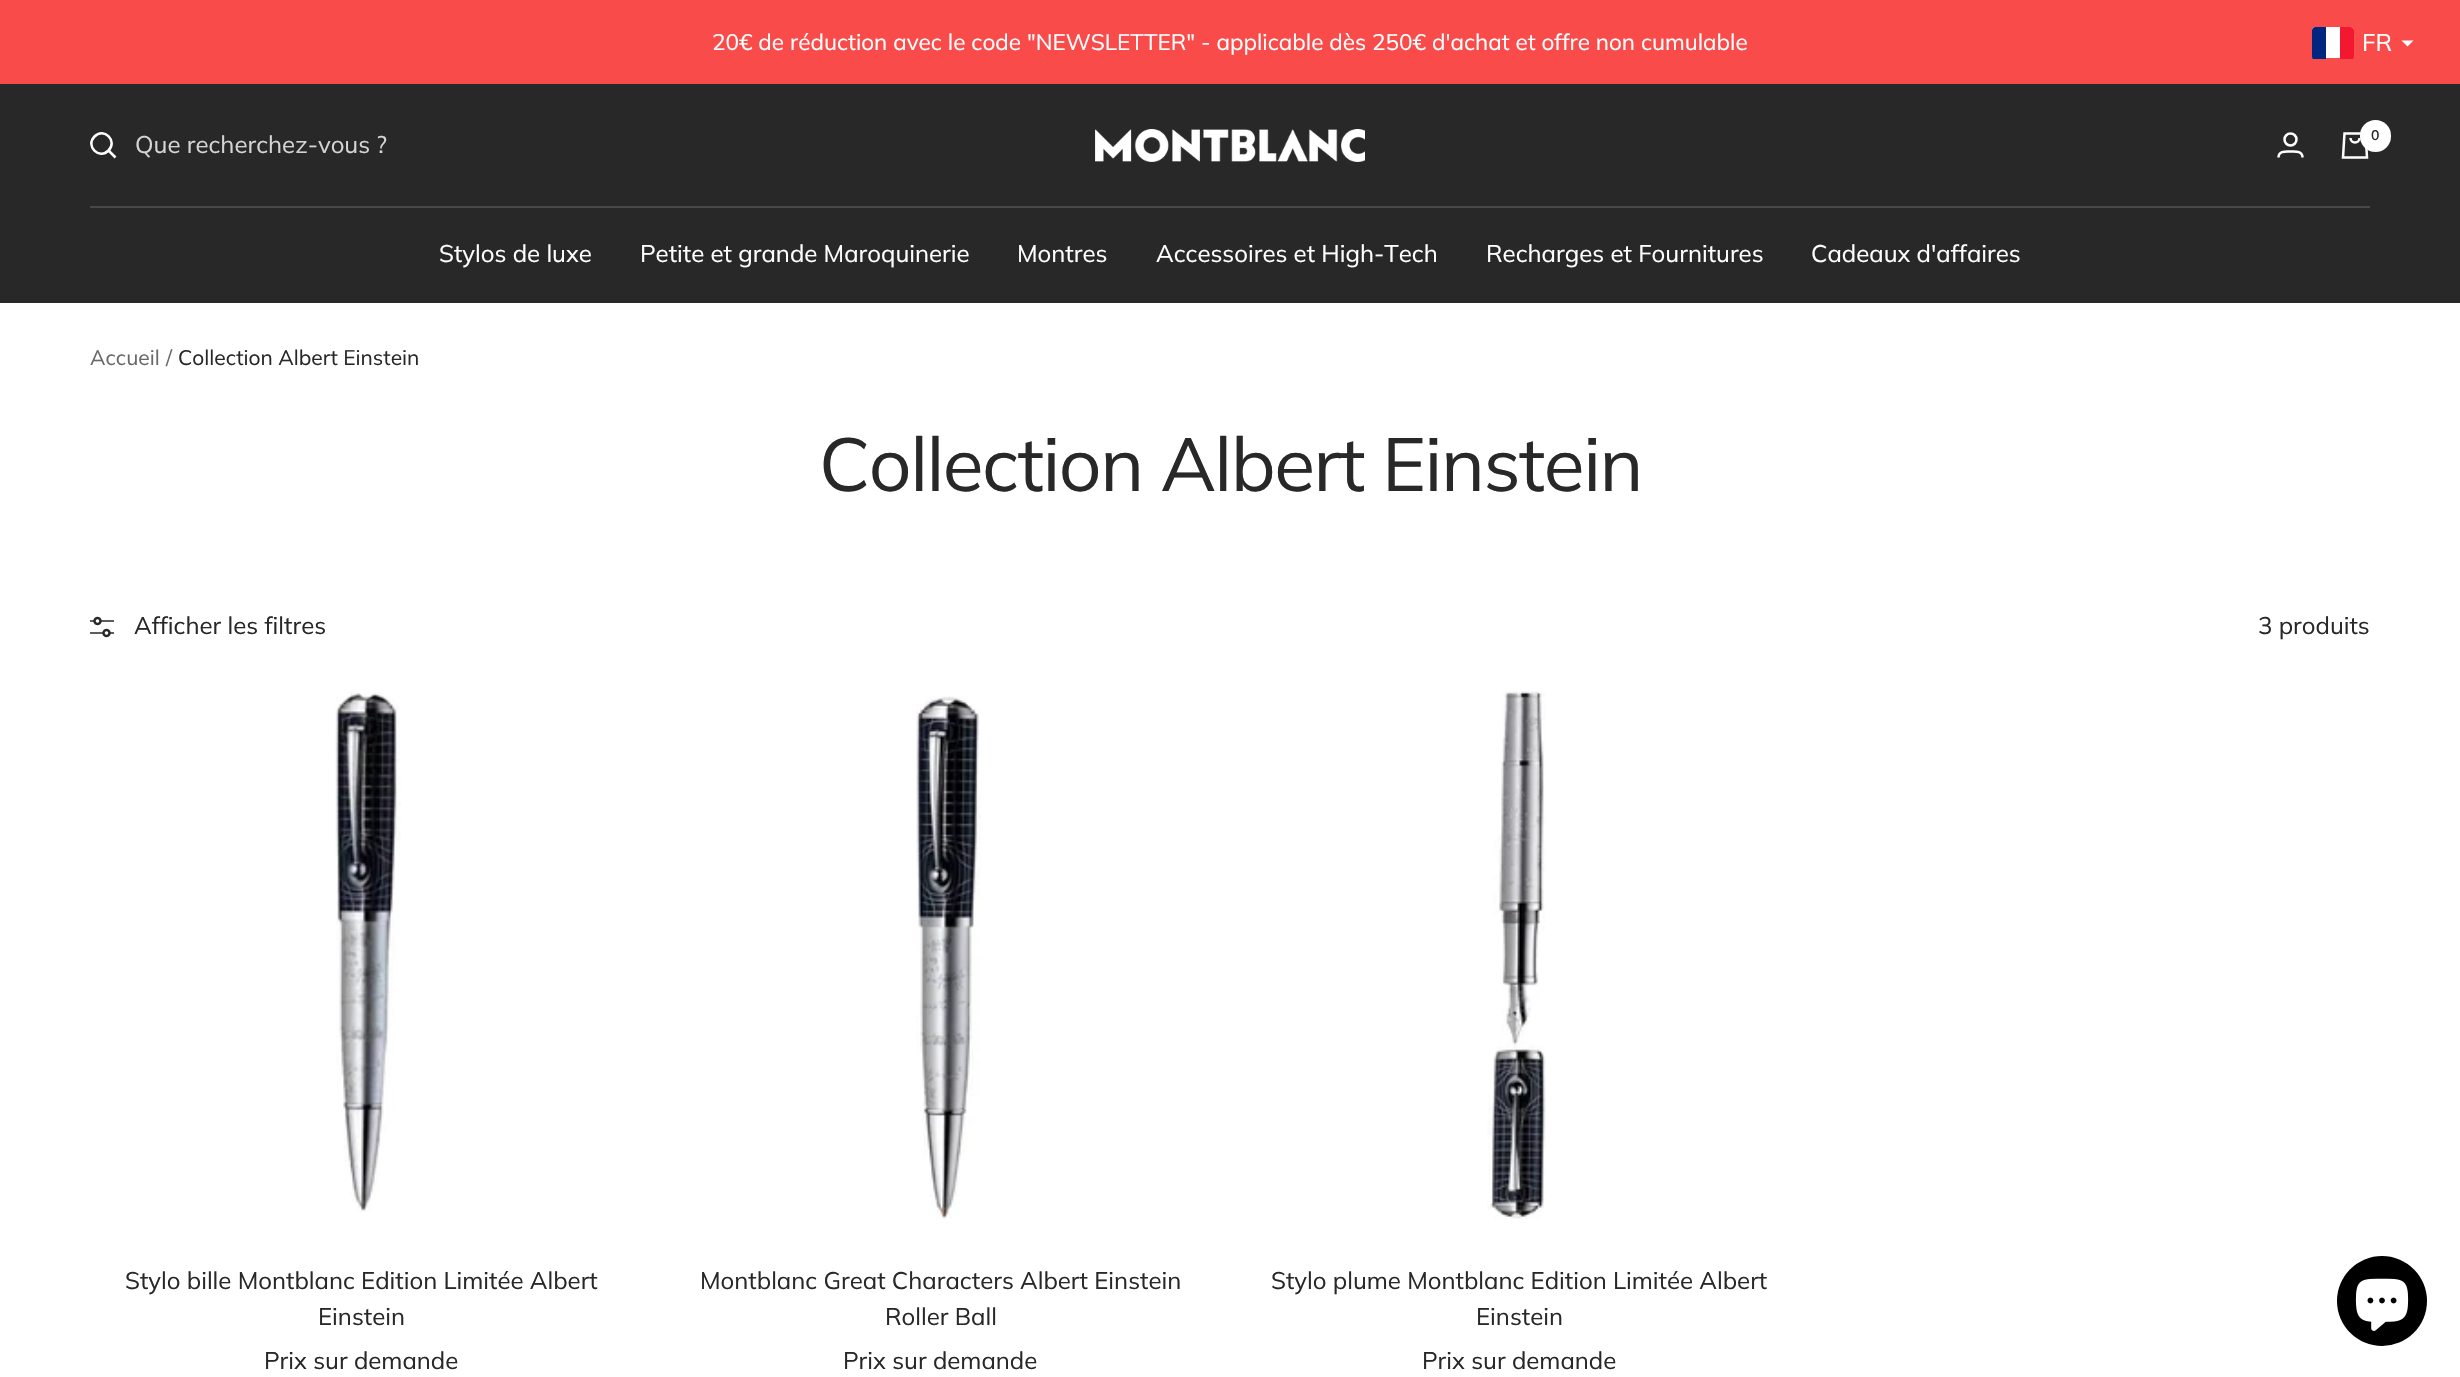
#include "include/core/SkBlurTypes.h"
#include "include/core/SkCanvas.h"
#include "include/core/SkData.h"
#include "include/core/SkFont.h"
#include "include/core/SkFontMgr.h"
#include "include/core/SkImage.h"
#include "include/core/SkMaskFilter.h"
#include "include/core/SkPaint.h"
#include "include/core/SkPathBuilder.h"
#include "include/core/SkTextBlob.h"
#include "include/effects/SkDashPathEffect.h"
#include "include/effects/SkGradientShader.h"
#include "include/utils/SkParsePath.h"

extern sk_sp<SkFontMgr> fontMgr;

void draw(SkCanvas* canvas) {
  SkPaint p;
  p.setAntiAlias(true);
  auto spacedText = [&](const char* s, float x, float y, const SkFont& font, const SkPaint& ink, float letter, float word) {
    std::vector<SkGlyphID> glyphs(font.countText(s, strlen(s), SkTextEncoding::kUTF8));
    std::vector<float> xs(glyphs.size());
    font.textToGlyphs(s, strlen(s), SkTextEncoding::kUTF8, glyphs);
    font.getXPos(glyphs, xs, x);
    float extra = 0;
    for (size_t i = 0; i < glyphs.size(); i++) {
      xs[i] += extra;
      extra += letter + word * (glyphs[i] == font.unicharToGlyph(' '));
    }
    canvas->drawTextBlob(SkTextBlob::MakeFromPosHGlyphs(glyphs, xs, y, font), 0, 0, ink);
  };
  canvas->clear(SK_ColorWHITE);
  p.setColor(SkColorSetRGB(250, 75, 75));
  canvas->drawRect(SkRect::MakeLTRB(0, 0, 2460, 84), p);
  canvas->save();
  canvas->clipPath(SkPathBuilder().moveTo(2315, 27).lineTo(2351, 27).cubicTo(2352.5f, 27, 2354, 28.5f, 2354, 30).lineTo(2354, 57).cubicTo(2354, 58.5f, 2352.5f, 60, 2351, 60).lineTo(2315, 60).cubicTo(2313.5f, 60, 2312, 58.5f, 2312, 57).lineTo(2312, 30).cubicTo(2312, 28.5f, 2313.5f, 27, 2315, 27).close().detach(), true);
  p.setColor(SK_ColorWHITE);
  canvas->drawPath(SkPathBuilder().moveTo(2315, 27).lineTo(2351, 27).cubicTo(2352.5f, 27, 2354, 28.5f, 2354, 30).lineTo(2354, 58).lineTo(2312, 58).lineTo(2312, 30).cubicTo(2312, 28.5f, 2313.5f, 27, 2315, 27).close().detach(), p);
  p.setColor(SkColorSetRGB(0, 38, 127));
  canvas->drawPath(SkPathBuilder().moveTo(2315, 27).lineTo(2326, 27).lineTo(2326, 59).lineTo(2312, 59).lineTo(2312, 30).cubicTo(2312, 28.5f, 2313.5f, 27, 2315, 27).close().detach(), p);
  p.setColor(SkColorSetRGB(243, 24, 48));
  canvas->drawPath(SkPathBuilder().moveTo(2340, 27).lineTo(2351, 27).cubicTo(2352.5f, 27, 2354, 28.5f, 2354, 30).lineTo(2354, 59).lineTo(2340, 59).close().detach(), p);
  canvas->restore();
  p.setColor(SK_ColorWHITE);
  canvas->drawPath(SkPathBuilder().moveTo(2401.5f, 40.5f).lineTo(2413.5f, 40.5f).lineTo(2407.5f, 46.5f).close().detach(), p);
  p.setColor(SkColorSetRGB(40, 40, 40));
  canvas->drawRect(SkRect::MakeLTRB(0, 84, 2460, 303), p);
  p.setStyle(SkPaint::kStroke_Style);
  p.setStrokeWidth(2.5f);
  p.setColor(SK_ColorWHITE);
  canvas->drawPath(SkPathBuilder().moveTo(108.5f, 150.5f).cubicTo(118, 141, 104, 127, 94.5f, 136.5f).cubicTo(85, 146, 99, 160, 108.5f, 150.5f).close().moveTo(108.5f, 150.5f).lineTo(115.5f, 157.5f).detach(), p);
  canvas->drawImageRect(SkImages::DeferredFromEncodedData(SkData::MakeFromFileName("images/1.png")), SkRect::MakeLTRB(1095, 129, 1365, 162), SkSamplingOptions());
  canvas->drawCircle(2290.5f, 139.5f, 6, p);
  canvas->drawPath(SkPathBuilder().moveTo(2278.5f, 157.5f).cubicTo(2278.5f, 150.5f, 2286, 151.5f, 2290.5f, 151.5f).cubicTo(2295, 151.5f, 2302.5f, 150.5f, 2302.5f, 157.5f).detach(), p);
  canvas->drawPath(SkPathBuilder().moveTo(2344.5f, 133.5f).lineTo(2365.5f, 133.5f).lineTo(2367, 157.5f).lineTo(2343, 157.5f).close().moveTo(2350.5f, 138).cubicTo(2350.5f, 144, 2359.5f, 144, 2359.5f, 138).detach(), p);
  p.setStyle(SkPaint::kFill_Style);
  canvas->drawRoundRect(SkRect::MakeLTRB(2360, 120, 2391, 152), 15.5f, 15.5f, p);
  p.setColor(SkColorSetRGB(72, 72, 72));
  canvas->drawRect(SkRect::MakeLTRB(90, 206, 2370, 208), p);
  canvas->drawImageRect(SkImages::DeferredFromEncodedData(SkData::MakeFromFileName("images/2.png")), SkRect::MakeLTRB(90, 616, 114, 638), SkSamplingOptions());
  canvas->drawImageRect(SkImages::DeferredFromEncodedData(SkData::MakeFromFileName("images/3.png")), SkRect::MakeLTRB(335, 692, 401, 1212), SkSamplingOptions());
  canvas->drawImageRect(SkImages::DeferredFromEncodedData(SkData::MakeFromFileName("images/4.png")), SkRect::MakeLTRB(916, 696, 981, 1219), SkSamplingOptions());
  canvas->drawImageRect(SkImages::DeferredFromEncodedData(SkData::MakeFromFileName("images/5.png")), SkRect::MakeLTRB(1487, 691, 1546, 1219), SkSamplingOptions());
  p.setColor(SK_ColorBLACK);
  canvas->drawCircle(2382, 1301, 45, p);
  canvas->drawImageRect(SkImages::DeferredFromEncodedData(SkData::MakeFromFileName("images/6.png")), SkRect::MakeLTRB(2355, 1278, 2409, 1331), SkSamplingOptions());
  SkFont font1(fontMgr->matchFamilyStyle("Muli", SkFontStyle::Normal()), 22.5f);
  font1.setSubpixel(true);
  p.setColor(SK_ColorWHITE);
  canvas->drawString("20€ de réduction avec le code \"NEWSLETTER\" - applicable dès 250€ d'achat et offre non cumulable", 712, 50, font1, p);
  SkFont font2(fontMgr->matchFamilyStyle("Muli", SkFontStyle::Normal()), 24);
  font2.setSubpixel(true);
  canvas->drawString("FR", 2362, 51, font2, p);
  p.setColor(SkColorSetRGB(212, 212, 212));
  canvas->drawString("Que recherchez-vous ?", 135, 153, font2, p);
  SkFont font3(fontMgr->matchFamilyStyle("Muli", SkFontStyle(600, SkFontStyle::kNormal_Width, SkFontStyle::kUpright_Slant)), 14);
  font3.setSubpixel(true);
  p.setColor(SkColorSetRGB(40, 40, 40));
  canvas->drawString("0", 2371, 140, font3, p);
  p.setColor(SK_ColorWHITE);
  canvas->drawString("Stylos de luxe", 439, 262, font2, p);
  canvas->drawString("Petite et grande Maroquinerie", 640, 262, font2, p);
  canvas->drawString("Montres", 1017, 262, font2, p);
  canvas->drawString("Accessoires et High-Tech", 1156, 262, font2, p);
  canvas->drawString("Recharges et Fournitures", 1486, 262, font2, p);
  canvas->drawString("Cadeaux d'affaires", 1811, 262, font2, p);
  SkFont font4(fontMgr->matchFamilyStyle("Muli", SkFontStyle::Normal()), 21);
  font4.setSubpixel(true);
  p.setColor(SkColorSetRGB(105, 105, 105));
  canvas->drawString("Accueil", 90, 365, font4, p);
  canvas->drawString("/", 166, 365, font4, p);
  p.setColor(SkColorSetRGB(40, 40, 40));
  canvas->drawString("Collection Albert Einstein", 178, 365, font4, p);
  SkFont font5(fontMgr->matchFamilyStyle("Muli", SkFontStyle::Normal()), 75);
  font5.setSubpixel(true);
  spacedText("Collection Albert Einstein", 819, 491, font5, p, -1.5f, 0);
  canvas->drawString("Afficher les filtres", 134, 634, font2, p);
  canvas->drawString("3 produits", 2258, 634, font2, p);
  canvas->drawString("Stylo bille Montblanc Edition Limitée Albert", 125, 1289, font2, p);
  canvas->drawString("Einstein", 318, 1325, font2, p);
  canvas->drawString("Prix sur demande", 264, 1369, font2, p);
  canvas->drawString("Montblanc Great Characters Albert Einstein", 700, 1289, font2, p);
  canvas->drawString("Roller Ball", 885, 1325, font2, p);
  canvas->drawString("Prix sur demande", 843, 1369, font2, p);
  canvas->drawString("Stylo plume Montblanc Edition Limitée Albert", 1271, 1289, font2, p);
  canvas->drawString("Einstein", 1476, 1325, font2, p);
  canvas->drawString("Prix sur demande", 1422, 1369, font2, p);
}
